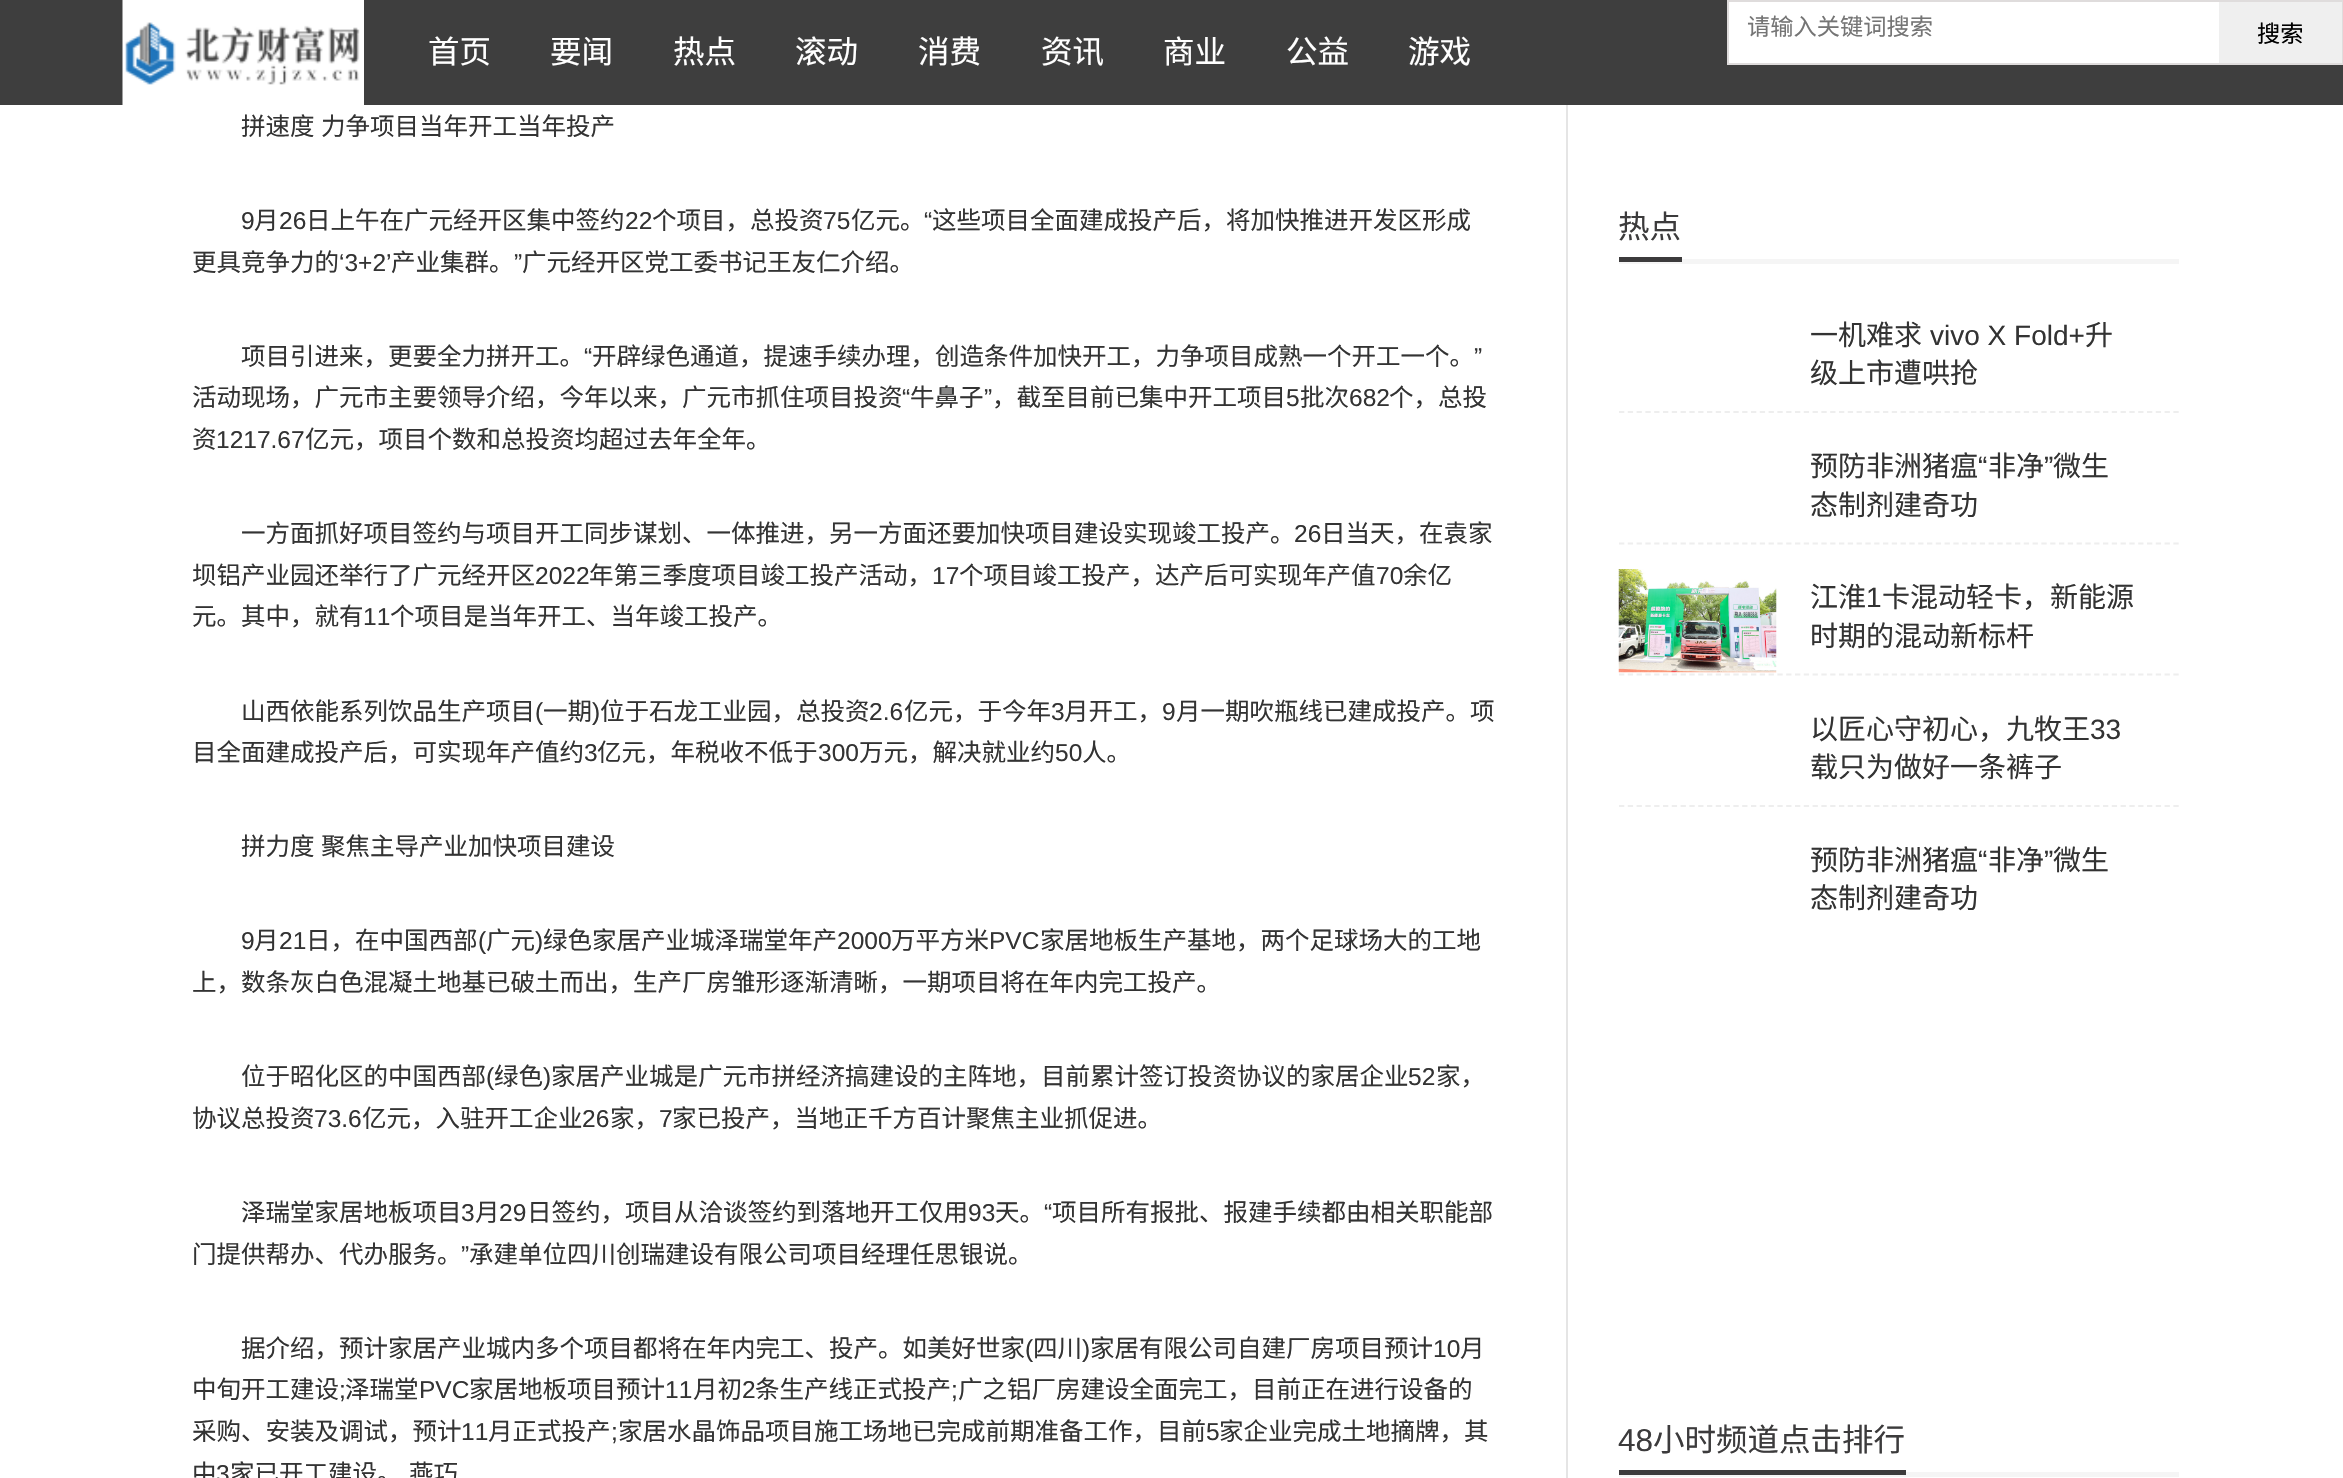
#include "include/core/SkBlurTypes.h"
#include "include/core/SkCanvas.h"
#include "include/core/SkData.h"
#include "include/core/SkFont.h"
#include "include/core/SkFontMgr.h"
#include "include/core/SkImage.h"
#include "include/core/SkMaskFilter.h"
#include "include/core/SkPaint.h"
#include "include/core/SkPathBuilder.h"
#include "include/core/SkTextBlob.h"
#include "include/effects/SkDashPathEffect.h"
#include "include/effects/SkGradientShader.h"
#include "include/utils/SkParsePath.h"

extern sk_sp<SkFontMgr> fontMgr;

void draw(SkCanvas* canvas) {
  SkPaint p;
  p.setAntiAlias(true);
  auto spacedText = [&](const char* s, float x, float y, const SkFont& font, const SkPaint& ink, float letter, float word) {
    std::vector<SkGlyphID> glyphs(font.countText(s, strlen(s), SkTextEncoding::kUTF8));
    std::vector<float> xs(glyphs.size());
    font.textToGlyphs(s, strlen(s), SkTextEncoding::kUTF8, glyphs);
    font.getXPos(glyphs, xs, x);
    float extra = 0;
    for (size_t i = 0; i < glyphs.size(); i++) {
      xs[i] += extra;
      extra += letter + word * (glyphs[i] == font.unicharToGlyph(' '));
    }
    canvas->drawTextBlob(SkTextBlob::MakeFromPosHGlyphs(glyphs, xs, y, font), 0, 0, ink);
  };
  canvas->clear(SK_ColorWHITE);
  p.setColor(SkColorSetRGB(62, 62, 62));
  canvas->drawRect(SkRect::MakeLTRB(0, 0, 2343, 105), p);
  p.setColor(SK_ColorWHITE);
  canvas->drawRect(SkRect::MakeLTRB(1729, 2, 2219, 63), p);
  p.setStyle(SkPaint::kStroke_Style);
  p.setStrokeWidth(2);
  p.setColor(SkColorSetRGB(223, 220, 220));
  canvas->drawRect(SkRect::MakeLTRB(1728, 1, 2342, 64), p);
  p.setStyle(SkPaint::kFill_Style);
  p.setColor(SkColorSetRGB(239, 239, 239));
  canvas->drawRect(SkRect::MakeLTRB(2219, 2, 2342, 63), p);
  canvas->drawImageRect(SkImages::DeferredFromEncodedData(SkData::MakeFromFileName("images/1.png")), SkRect::MakeLTRB(122, 0, 364, 105), SkSamplingOptions());
  p.setColor(SkColorSetRGB(229, 229, 229));
  canvas->drawRect(SkRect::MakeLTRB(1566, 105, 1568, 1478), p);
  p.setColor(SkColorSetRGB(245, 245, 245));
  canvas->drawRect(SkRect::MakeLTRB(1619, 259, 2179, 264), p);
  p.setColor(SkColorSetRGB(60, 59, 60));
  canvas->drawRect(SkRect::MakeLTRB(1619, 257, 1682, 262), p);
  p.setStyle(SkPaint::kStroke_Style);
  p.setStrokeWidth(1.8f);
  p.setColor(SkColorSetRGB(238, 238, 238));
  p.setPathEffect(SkDashPathEffect::Make({{5.25f, 3.55f}}, 0));
  canvas->drawPath(SkPathBuilder().moveTo(1619, 412).lineTo(2179, 412).detach(), p);
  p.setPathEffect(nullptr);
  p.setPathEffect(SkDashPathEffect::Make({{5.25f, 3.55f}}, 0));
  canvas->drawPath(SkPathBuilder().moveTo(1619, 543.5f).lineTo(2179, 543.5f).detach(), p);
  p.setPathEffect(nullptr);
  canvas->drawImageRect(SkImages::DeferredFromEncodedData(SkData::MakeFromFileName("images/2.png")), SkRect::MakeLTRB(1618, 569, 1777, 673), SkSamplingOptions());
  p.setPathEffect(SkDashPathEffect::Make({{5.25f, 3.55f}}, 0));
  canvas->drawPath(SkPathBuilder().moveTo(1619, 674.5f).lineTo(2179, 674.5f).detach(), p);
  p.setPathEffect(nullptr);
  p.setPathEffect(SkDashPathEffect::Make({{5.25f, 3.55f}}, 0));
  canvas->drawPath(SkPathBuilder().moveTo(1619, 806).lineTo(2179, 806).detach(), p);
  p.setPathEffect(nullptr);
  p.setStyle(SkPaint::kFill_Style);
  p.setColor(SkColorSetRGB(245, 245, 245));
  canvas->drawRect(SkRect::MakeLTRB(1619, 1472, 2179, 1477), p);
  p.setColor(SkColorSetRGB(60, 59, 60));
  canvas->drawRect(SkRect::MakeLTRB(1619, 1470, 1906, 1475), p);
  SkFont font1(fontMgr->matchFamilyStyle("Noto Sans CJK SC", SkFontStyle::Normal()), 23.25f);
  font1.setSubpixel(true);
  p.setColor(SkColorSetRGB(117, 117, 117));
  canvas->drawString("请输入关键词搜索", 1747, 35, font1, p);
  p.setColor(SK_ColorBLACK);
  canvas->drawString("搜索", 2257, 42, font1, p);
  SkFont font2(fontMgr->matchFamilyStyle("Noto Sans CJK SC", SkFontStyle::Normal()), 31.5f);
  font2.setSubpixel(true);
  p.setColor(SK_ColorWHITE);
  canvas->drawString("首页", 428, 63, font2, p);
  canvas->drawString("要闻", 550, 63, font2, p);
  canvas->drawString("热点", 673, 63, font2, p);
  canvas->drawString("滚动", 795, 63, font2, p);
  canvas->drawString("消费", 918, 63, font2, p);
  canvas->drawString("资讯", 1041, 63, font2, p);
  canvas->drawString("商业", 1163, 63, font2, p);
  canvas->drawString("公益", 1286, 63, font2, p);
  canvas->drawString("游戏", 1408, 63, font2, p);
  SkFont font3(fontMgr->matchFamilyStyle("Noto Sans CJK SC", SkFontStyle::Normal()), 24.5f);
  font3.setSubpixel(true);
  p.setColor(SkColorSetRGB(51, 51, 51));
  spacedText("拼速度 力争项目当年开工当年投产", 241, 135, font3, p, 0, 1);
  SkFont font4(fontMgr->matchFamilyStyle("Liberation Sans", SkFontStyle::Normal()), 24.5f);
  font4.setSubpixel(true);
  canvas->drawString("9", 241, 229, font4, p);
  canvas->drawString("月", 254, 229, font3, p);
  canvas->drawString("26", 279, 229, font4, p);
  canvas->drawString("日上午在广元经开区集中签约", 306, 229, font3, p);
  canvas->drawString("22", 625, 229, font4, p);
  canvas->drawString("个项目，总投资", 652, 229, font3, p);
  canvas->drawString("75", 823, 229, font4, p);
  canvas->drawString("亿元。", 851, 229, font3, p);
  canvas->drawString("“", 924, 229, font4, p);
  canvas->drawString("这些项目全面建成投产后，将加快推进开发区形成", 932, 229, font3, p);
  canvas->drawString("更具竞争力的", 192, 271, font3, p);
  canvas->drawString("‘3+2’", 339, 271, font4, p);
  canvas->drawString("产业集群。", 391, 271, font3, p);
  canvas->drawString("”", 514, 271, font4, p);
  canvas->drawString("广元经开区党工委书记王友仁介绍。", 522, 271, font3, p);
  canvas->drawString("项目引进来，更要全力拼开工。", 241, 365, font3, p);
  canvas->drawString("“", 584, 365, font4, p);
  canvas->drawString("开辟绿色通道，提速手续办理，创造条件加快开工，力争项目成熟一个开工一个。", 592, 365, font3, p);
  canvas->drawString("”", 1474, 365, font4, p);
  canvas->drawString("活动现场，广元市主要领导介绍，今年以来，广元市抓住项目投资", 192, 406, font3, p);
  canvas->drawString("“", 902, 406, font4, p);
  canvas->drawString("牛鼻子", 910, 406, font3, p);
  canvas->drawString("”", 984, 406, font4, p);
  canvas->drawString("，截至目前已集中开工项目", 992, 406, font3, p);
  canvas->drawString("5", 1286, 406, font4, p);
  canvas->drawString("批次", 1300, 406, font3, p);
  canvas->drawString("682", 1349, 406, font4, p);
  canvas->drawString("个，总投", 1389, 406, font3, p);
  canvas->drawString("资", 192, 448, font3, p);
  canvas->drawString("1217.67", 216, 448, font4, p);
  canvas->drawString("亿元，项目个数和总投资均超过去年全年。", 305, 448, font3, p);
  canvas->drawString("一方面抓好项目签约与项目开工同步谋划、一体推进，另一方面还要加快项目建设实现竣工投产。", 241, 542, font3, p);
  canvas->drawString("26", 1294, 542, font4, p);
  canvas->drawString("日当天，在袁家", 1321, 542, font3, p);
  canvas->drawString("坝铝产业园还举行了广元经开区", 192, 584, font3, p);
  canvas->drawString("2022", 535, 584, font4, p);
  canvas->drawString("年第三季度项目竣工投产活动，", 589, 584, font3, p);
  canvas->drawString("17", 932, 584, font4, p);
  canvas->drawString("个项目竣工投产，达产后可实现年产值", 959, 584, font3, p);
  canvas->drawString("70", 1376, 584, font4, p);
  canvas->drawString("余亿", 1403, 584, font3, p);
  canvas->drawString("元。其中，就有", 192, 625, font3, p);
  canvas->drawString("11", 363, 625, font4, p);
  canvas->drawString("个项目是当年开工、当年竣工投产。", 390, 625, font3, p);
  canvas->drawString("山西依能系列饮品生产项目", 241, 720, font3, p);
  canvas->drawString("(", 535, 720, font4, p);
  canvas->drawString("一期", 543, 720, font3, p);
  canvas->drawString(")", 592, 720, font4, p);
  canvas->drawString("位于石龙工业园，总投资", 600, 720, font3, p);
  canvas->drawString("2.6", 869, 720, font4, p);
  canvas->drawString("亿元，于今年", 904, 720, font3, p);
  canvas->drawString("3", 1051, 720, font4, p);
  canvas->drawString("月开工，", 1064, 720, font3, p);
  canvas->drawString("9", 1162, 720, font4, p);
  canvas->drawString("月一期吹瓶线已建成投产。项", 1176, 720, font3, p);
  canvas->drawString("目全面建成投产后，可实现年产值约", 192, 761, font3, p);
  canvas->drawString("3", 584, 761, font4, p);
  canvas->drawString("亿元，年税收不低于", 597, 761, font3, p);
  canvas->drawString("300", 818, 761, font4, p);
  canvas->drawString("万元，解决就业约", 859, 761, font3, p);
  canvas->drawString("50", 1055, 761, font4, p);
  canvas->drawString("人。", 1082, 761, font3, p);
  spacedText("拼力度 聚焦主导产业加快项目建设", 241, 855, font3, p, 0, 1);
  canvas->drawString("9", 241, 949, font4, p);
  canvas->drawString("月", 254, 949, font3, p);
  canvas->drawString("21", 279, 949, font4, p);
  canvas->drawString("日，在中国西部", 306, 949, font3, p);
  canvas->drawString("(", 478, 949, font4, p);
  canvas->drawString("广元", 486, 949, font3, p);
  canvas->drawString(")", 535, 949, font4, p);
  canvas->drawString("绿色家居产业城泽瑞堂年产", 543, 949, font3, p);
  canvas->drawString("2000", 837, 949, font4, p);
  canvas->drawString("万平方米", 891, 949, font3, p);
  canvas->drawString("PVC", 989, 949, font4, p);
  canvas->drawString("家居地板生产基地，两个足球场大的工地", 1040, 949, font3, p);
  canvas->drawString("上，数条灰白色混凝土地基已破土而出，生产厂房雏形逐渐清晰，一期项目将在年内完工投产。", 192, 991, font3, p);
  canvas->drawString("位于昭化区的中国西部", 241, 1085, font3, p);
  canvas->drawString("(", 486, 1085, font4, p);
  canvas->drawString("绿色", 494, 1085, font3, p);
  canvas->drawString(")", 543, 1085, font4, p);
  canvas->drawString("家居产业城是广元市拼经济搞建设的主阵地，目前累计签订投资协议的家居企业", 551, 1085, font3, p);
  canvas->drawString("52", 1408, 1085, font4, p);
  canvas->drawString("家，", 1436, 1085, font3, p);
  canvas->drawString("协议总投资", 192, 1127, font3, p);
  canvas->drawString("73.6", 314, 1127, font4, p);
  canvas->drawString("亿元，入驻开工企业", 362, 1127, font3, p);
  canvas->drawString("26", 582, 1127, font4, p);
  canvas->drawString("家，", 610, 1127, font3, p);
  canvas->drawString("7", 659, 1127, font4, p);
  canvas->drawString("家已投产，当地正千方百计聚焦主业抓促进。", 672, 1127, font3, p);
  canvas->drawString("泽瑞堂家居地板项目", 241, 1221, font3, p);
  canvas->drawString("3", 461, 1221, font4, p);
  canvas->drawString("月", 475, 1221, font3, p);
  canvas->drawString("29", 499, 1221, font4, p);
  canvas->drawString("日签约，项目从洽谈签约到落地开工仅用", 527, 1221, font3, p);
  canvas->drawString("93", 968, 1221, font4, p);
  canvas->drawString("天。", 995, 1221, font3, p);
  canvas->drawString("“", 1044, 1221, font4, p);
  canvas->drawString("项目所有报批、报建手续都由相关职能部", 1052, 1221, font3, p);
  canvas->drawString("门提供帮办、代办服务。", 192, 1263, font3, p);
  canvas->drawString("”", 461, 1263, font4, p);
  canvas->drawString("承建单位四川创瑞建设有限公司项目经理任思银说。", 469, 1263, font3, p);
  canvas->drawString("据介绍，预计家居产业城内多个项目都将在年内完工、投产。如美好世家", 241, 1357, font3, p);
  canvas->drawString("(", 1025, 1357, font4, p);
  canvas->drawString("四川", 1033, 1357, font3, p);
  canvas->drawString(")", 1082, 1357, font4, p);
  canvas->drawString("家居有限公司自建厂房项目预计", 1090, 1357, font3, p);
  canvas->drawString("10", 1433, 1357, font4, p);
  canvas->drawString("月", 1460, 1357, font3, p);
  canvas->drawString("中旬开工建设", 192, 1398, font3, p);
  canvas->drawString(";", 339, 1398, font4, p);
  canvas->drawString("泽瑞堂", 345, 1398, font3, p);
  canvas->drawString("PVC", 419, 1398, font4, p);
  canvas->drawString("家居地板项目预计", 469, 1398, font3, p);
  canvas->drawString("11", 665, 1398, font4, p);
  canvas->drawString("月初", 693, 1398, font3, p);
  canvas->drawString("2", 742, 1398, font4, p);
  canvas->drawString("条生产线正式投产", 755, 1398, font3, p);
  canvas->drawString(";", 951, 1398, font4, p);
  canvas->drawString("广之铝厂房建设全面完工，目前正在进行设备的", 958, 1398, font3, p);
  canvas->drawString("采购、安装及调试，预计", 192, 1440, font3, p);
  canvas->drawString("11", 461, 1440, font4, p);
  canvas->drawString("月正式投产", 488, 1440, font3, p);
  canvas->drawString(";", 611, 1440, font4, p);
  canvas->drawString("家居水晶饰品项目施工场地已完成前期准备工作，目前", 618, 1440, font3, p);
  canvas->drawString("5", 1206, 1440, font4, p);
  canvas->drawString("家企业完成土地摘牌，其", 1219, 1440, font3, p);
  canvas->drawString("中", 192, 1482, font3, p);
  canvas->drawString("3", 216, 1482, font4, p);
  canvas->drawString("家已开工建设。", 230, 1482, font3, p);
  canvas->drawString("燕巧", 409, 1482, font3, p);
  p.setColor(SkColorSetRGB(60, 59, 60));
  canvas->drawString("热点", 1618, 238, font2, p);
  SkFont font5(fontMgr->matchFamilyStyle("Noto Sans CJK SC", SkFontStyle::Normal()), 28);
  font5.setSubpixel(true);
  p.setColor(SkColorSetRGB(51, 51, 51));
  canvas->drawString("一机难求", 1810, 345, font5, p);
  SkFont font6(fontMgr->matchFamilyStyle("Liberation Sans", SkFontStyle::Normal()), 28);
  font6.setSubpixel(true);
  canvas->drawString("vivo X Fold+", 1930, 345, font6, p);
  canvas->drawString("升", 2085, 345, font5, p);
  canvas->drawString("级上市遭哄抢", 1810, 383, font5, p);
  canvas->drawString("预防非洲猪瘟", 1810, 476, font5, p);
  canvas->drawString("“", 1978, 476, font6, p);
  canvas->drawString("非净", 1988, 476, font5, p);
  canvas->drawString("”", 2044, 476, font6, p);
  canvas->drawString("微生", 2053, 476, font5, p);
  canvas->drawString("态制剂建奇功", 1810, 515, font5, p);
  canvas->drawString("江淮", 1810, 607, font5, p);
  canvas->drawString("1", 1866, 607, font6, p);
  canvas->drawString("卡混动轻卡，新能源", 1882, 607, font5, p);
  canvas->drawString("时期的混动新标杆", 1810, 646, font5, p);
  canvas->drawString("以匠心守初心，九牧王", 1810, 739, font5, p);
  canvas->drawString("33", 2090, 739, font6, p);
  canvas->drawString("载只为做好一条裤子", 1810, 777, font5, p);
  canvas->drawString("预防非洲猪瘟", 1810, 870, font5, p);
  canvas->drawString("“", 1978, 870, font6, p);
  canvas->drawString("非净", 1988, 870, font5, p);
  canvas->drawString("”", 2044, 870, font6, p);
  canvas->drawString("微生", 2053, 870, font5, p);
  canvas->drawString("态制剂建奇功", 1810, 908, font5, p);
  SkFont font7(fontMgr->matchFamilyStyle("Liberation Sans", SkFontStyle::Normal()), 31.5f);
  font7.setSubpixel(true);
  p.setColor(SkColorSetRGB(60, 59, 60));
  canvas->drawString("48", 1618, 1451, font7, p);
  canvas->drawString("小时频道点击排行", 1653, 1451, font2, p);
}
